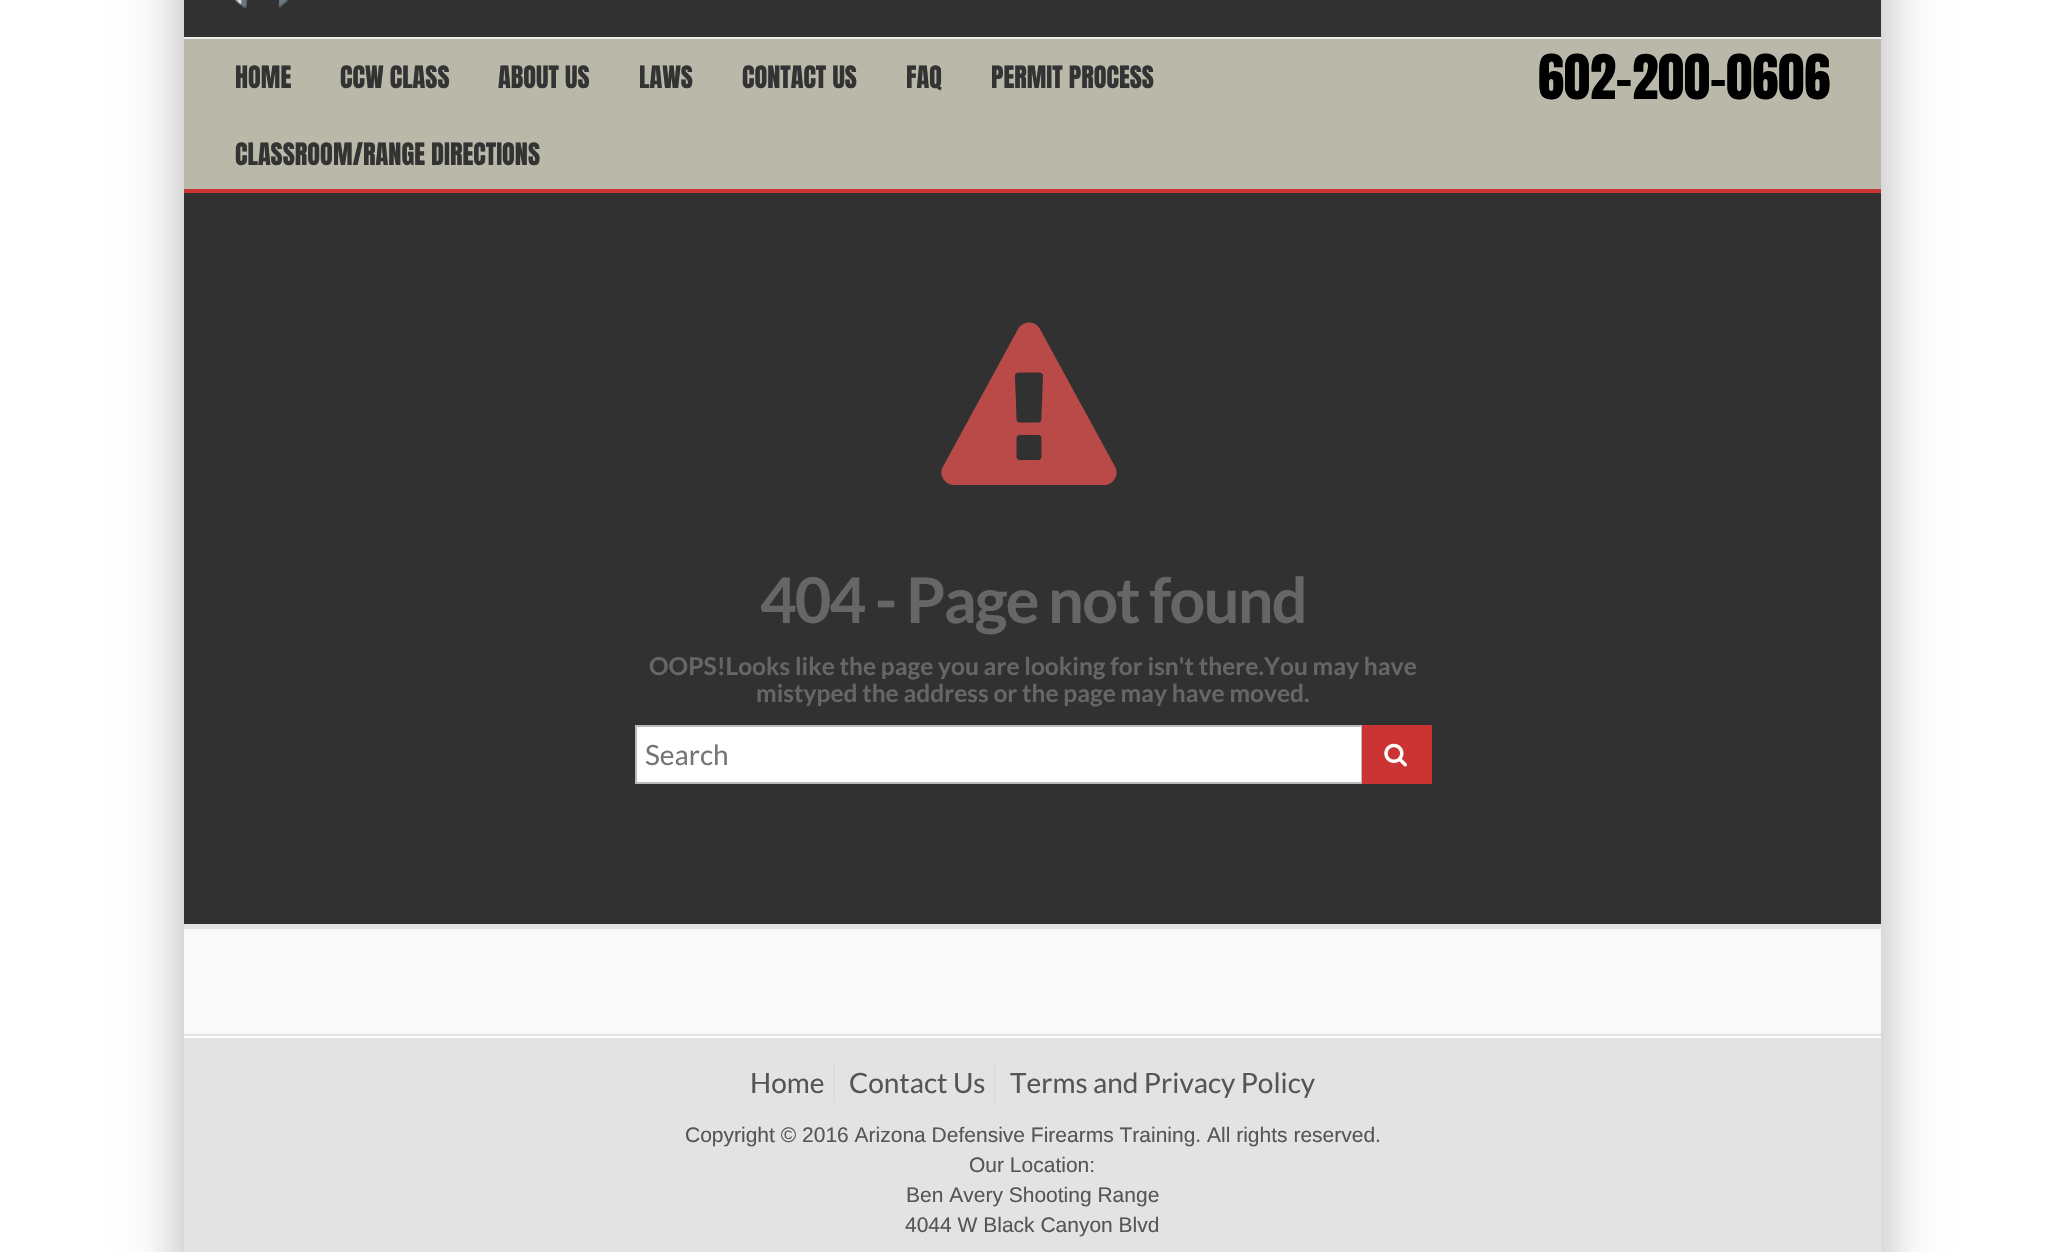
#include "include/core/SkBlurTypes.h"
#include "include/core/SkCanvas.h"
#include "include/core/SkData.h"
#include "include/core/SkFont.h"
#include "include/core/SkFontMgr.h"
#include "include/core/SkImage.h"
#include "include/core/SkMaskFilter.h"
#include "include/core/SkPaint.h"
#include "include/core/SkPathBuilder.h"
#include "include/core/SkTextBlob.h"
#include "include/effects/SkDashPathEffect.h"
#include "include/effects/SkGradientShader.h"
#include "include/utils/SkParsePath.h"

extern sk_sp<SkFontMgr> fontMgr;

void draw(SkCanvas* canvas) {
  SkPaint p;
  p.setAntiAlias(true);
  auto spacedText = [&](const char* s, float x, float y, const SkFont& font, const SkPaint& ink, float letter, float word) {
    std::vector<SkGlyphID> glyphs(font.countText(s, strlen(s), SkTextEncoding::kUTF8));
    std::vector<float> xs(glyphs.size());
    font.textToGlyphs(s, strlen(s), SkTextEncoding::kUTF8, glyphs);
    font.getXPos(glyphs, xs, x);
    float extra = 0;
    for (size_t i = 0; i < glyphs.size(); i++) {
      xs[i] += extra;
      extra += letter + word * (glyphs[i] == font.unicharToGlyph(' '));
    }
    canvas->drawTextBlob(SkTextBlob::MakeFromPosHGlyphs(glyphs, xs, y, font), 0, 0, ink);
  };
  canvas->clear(SK_ColorWHITE);
  p.setColor(SkColorSetARGB(77, 0, 0, 0));
  p.setMaskFilter(SkMaskFilter::MakeBlur(kNormal_SkBlurStyle, 26));
  canvas->drawRect(SkRect::MakeLTRB(184, -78, 1881, 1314), p);
  p.setMaskFilter(nullptr);
  p.setColor(SkColorSetRGB(49, 49, 49));
  canvas->drawRect(SkRect::MakeLTRB(184, 0, 1881, 37), p);
  canvas->drawImageRect(SkImages::DeferredFromEncodedData(SkData::MakeFromFileName("images/1.png")), SkRect::MakeLTRB(232, 0, 291, 10), SkSamplingOptions());
  p.setColor(SkColorSetRGB(185, 184, 169));
  canvas->drawRect(SkRect::MakeLTRB(184, 39, 1881, 189), p);
  p.setColor(SkColorSetRGB(238, 238, 238));
  canvas->drawRect(SkRect::MakeLTRB(184, 37, 1881, 39), p);
  p.setColor(SkColorSetRGB(204, 51, 51));
  canvas->drawRect(SkRect::MakeLTRB(184, 189, 1881, 193), p);
  p.setColor(SkColorSetRGB(49, 49, 49));
  canvas->drawRect(SkRect::MakeLTRB(184, 193, 1881, 924), p);
  canvas->drawImageRect(SkImages::DeferredFromEncodedData(SkData::MakeFromFileName("images/2.png")), SkRect::MakeLTRB(941, 322, 1117, 485), SkSamplingOptions());
  p.setColor(SK_ColorWHITE);
  canvas->drawRect(SkRect::MakeLTRB(636, 726, 1362, 783), p);
  p.setStyle(SkPaint::kStroke_Style);
  p.setStrokeWidth(2);
  p.setColor(SkColorSetRGB(187, 187, 187));
  canvas->drawRect(SkRect::MakeLTRB(636, 726, 1362, 783), p);
  p.setStyle(SkPaint::kFill_Style);
  p.setColor(SkColorSetRGB(204, 51, 51));
  canvas->drawRect(SkRect::MakeLTRB(1362, 725, 1432, 784), p);
  canvas->drawImageRect(SkImages::DeferredFromEncodedData(SkData::MakeFromFileName("images/3.png")), SkRect::MakeLTRB(1384, 743, 1407, 767), SkSamplingOptions());
  p.setColor(SkColorSetRGB(249, 249, 249));
  canvas->drawRect(SkRect::MakeLTRB(184, 929, 1881, 1034), p);
  p.setColor(SkColorSetRGB(227, 227, 227));
  canvas->drawRect(SkRect::MakeLTRB(184, 924, 1881, 929), p);
  canvas->drawRect(SkRect::MakeLTRB(184, 1034, 1881, 1036), p);
  canvas->drawRect(SkRect::MakeLTRB(184, 1038, 1881, 1252), p);
  p.setColor(SK_ColorWHITE);
  canvas->drawRect(SkRect::MakeLTRB(184, 1036, 1881, 1038), p);
  p.setColor(SkColorSetRGB(221, 221, 221));
  canvas->drawRect(SkRect::MakeLTRB(833, 1064, 835, 1103), p);
  canvas->drawRect(SkRect::MakeLTRB(994, 1064, 996, 1103), p);
  SkFont font1(fontMgr->matchFamilyStyle("Anton", SkFontStyle::Normal()), 26.25f);
  font1.setSubpixel(true);
  p.setColor(SkColorSetRGB(51, 51, 51));
  canvas->drawString("HOME", 235, 88, font1, p);
  canvas->drawString("CCW CLASS", 340, 88, font1, p);
  canvas->drawString("ABOUT US", 498, 88, font1, p);
  canvas->drawString("LAWS", 639, 88, font1, p);
  canvas->drawString("CONTACT US", 742, 88, font1, p);
  canvas->drawString("FAQ", 906, 88, font1, p);
  canvas->drawString("PERMIT PROCESS", 991, 88, font1, p);
  SkFont font2(fontMgr->matchFamilyStyle("Anton", SkFontStyle::Normal()), 52.5f);
  font2.setSubpixel(true);
  p.setColor(SK_ColorBLACK);
  canvas->drawString("602-200-0606", 1538, 99, font2, p);
  p.setColor(SkColorSetRGB(51, 51, 51));
  canvas->drawString("CLASSROOM/RANGE DIRECTIONS", 235, 165, font1, p);
  SkFont font3(fontMgr->matchFamilyStyle("Lato", SkFontStyle::Bold()), 63);
  font3.setSubpixel(true);
  p.setColor(SkColorSetRGB(102, 102, 102));
  spacedText("404 - Page not found", 760, 623, font3, p, -1.75f, 0);
  SkFont font4(fontMgr->matchFamilyStyle("Lato", SkFontStyle::Bold()), 24.5f);
  font4.setSubpixel(true);
  canvas->drawString("OOPS!Looks like the page you are looking for isn't there.You may have", 649, 675, font4, p);
  canvas->drawString("mistyped the address or the page may have moved.", 756, 702, font4, p);
  SkFont font5(fontMgr->matchFamilyStyle("Lato", SkFontStyle::Normal()), 28);
  font5.setSubpixel(true);
  p.setColor(SkColorSetRGB(117, 117, 117));
  canvas->drawString("Search", 645, 765, font5, p);
  p.setColor(SkColorSetRGB(85, 85, 85));
  canvas->drawString("Home", 750, 1093, font5, p);
  canvas->drawString("Contact Us", 849, 1093, font5, p);
  canvas->drawString("Terms and Privacy Policy", 1010, 1093, font5, p);
  SkFont font6(fontMgr->matchFamilyStyle("Liberation Sans", SkFontStyle::Normal()), 21);
  font6.setSubpixel(true);
  canvas->drawString("Copyright © 2016 Arizona Defensive Firearms Training. All rights reserved.", 685, 1142, font6, p);
  canvas->drawString("Our Location:", 969, 1172, font6, p);
  canvas->drawString("Ben Avery Shooting Range", 906, 1202, font6, p);
  canvas->drawString("4044 W Black Canyon Blvd", 905, 1232, font6, p);
}
